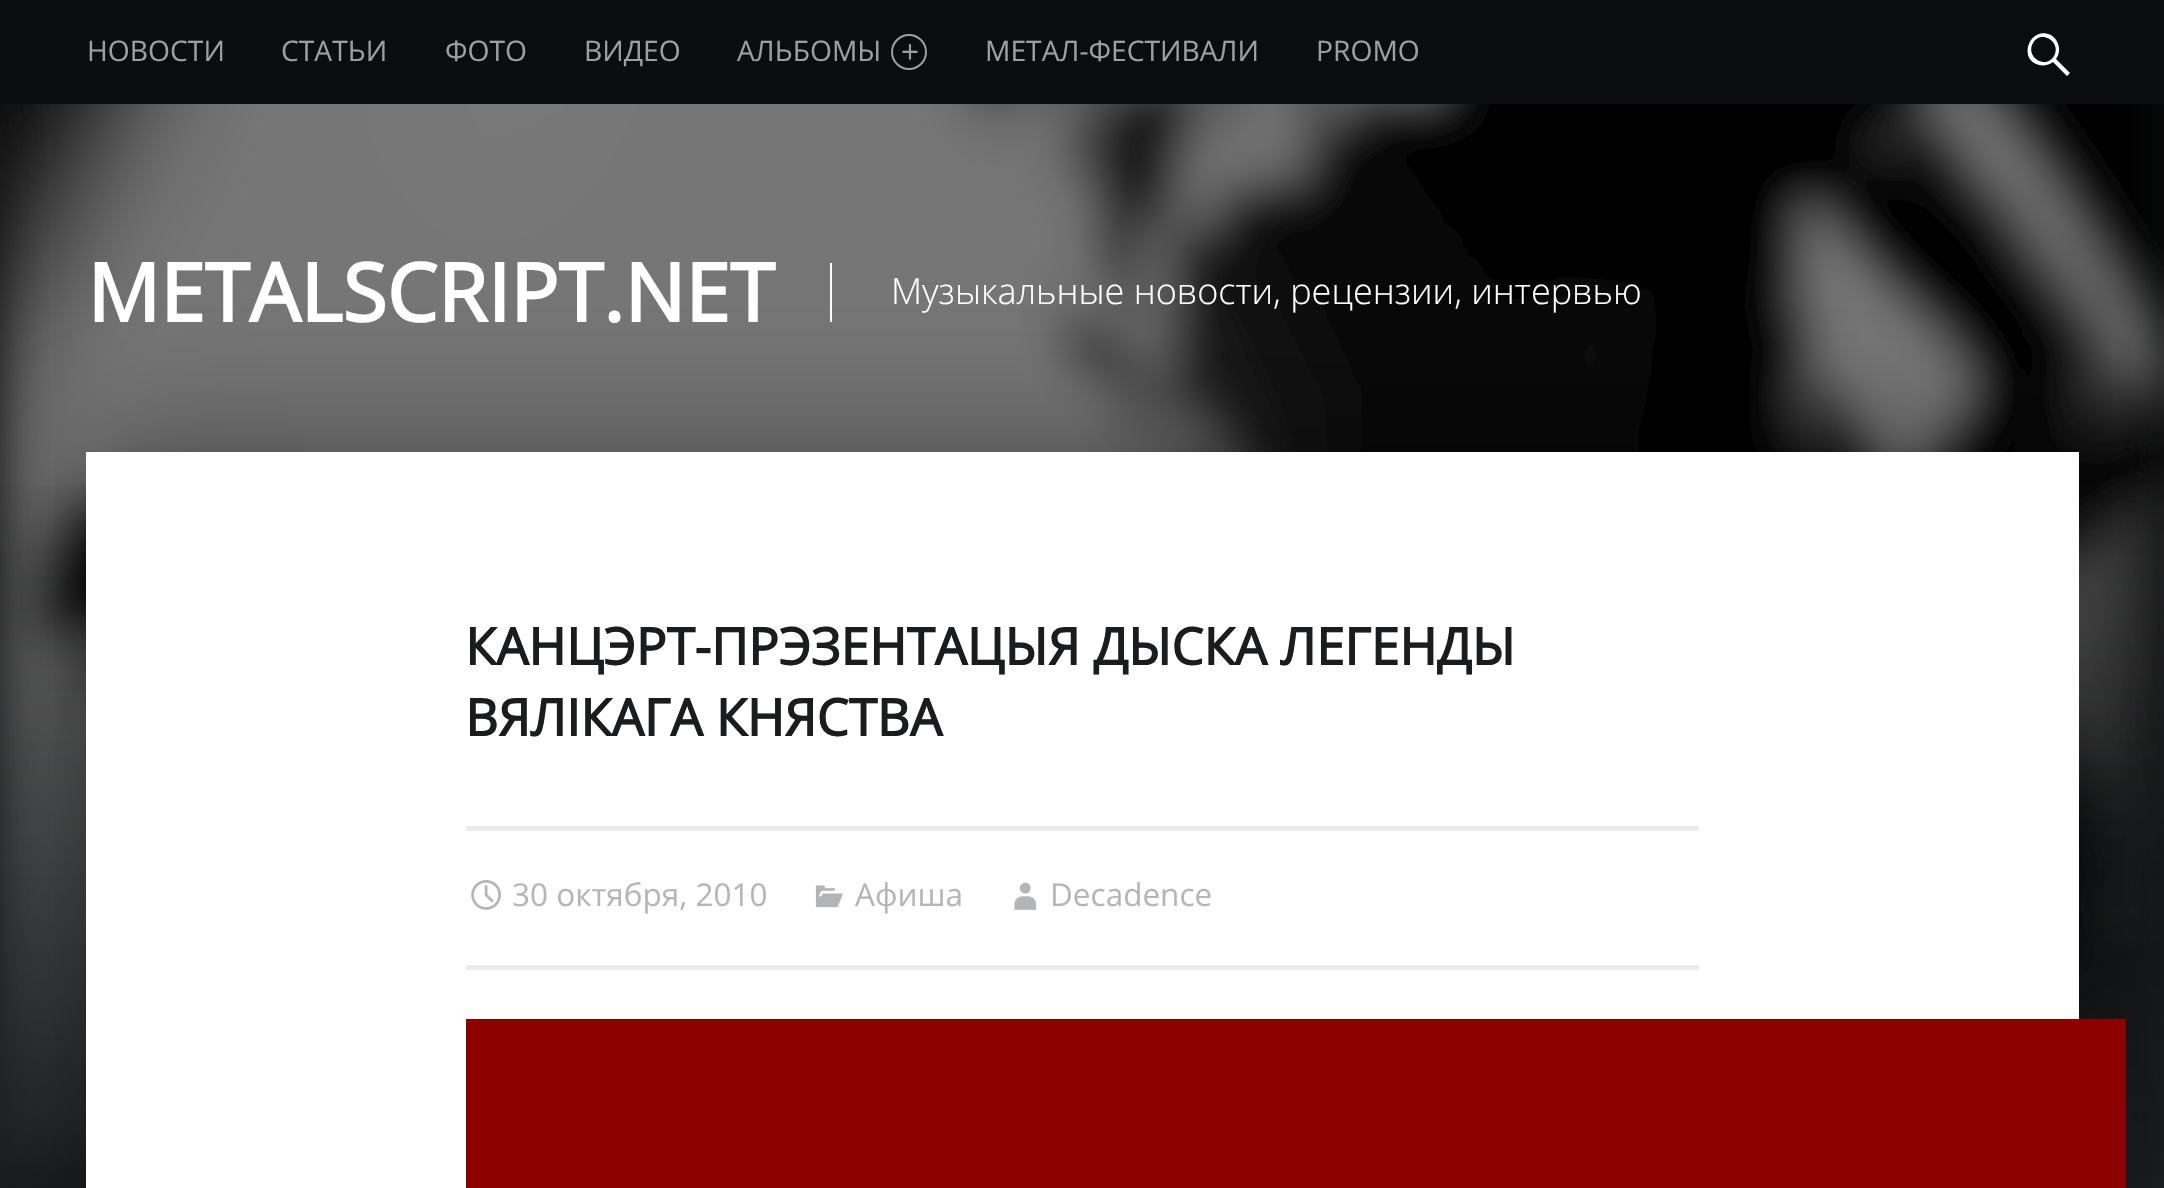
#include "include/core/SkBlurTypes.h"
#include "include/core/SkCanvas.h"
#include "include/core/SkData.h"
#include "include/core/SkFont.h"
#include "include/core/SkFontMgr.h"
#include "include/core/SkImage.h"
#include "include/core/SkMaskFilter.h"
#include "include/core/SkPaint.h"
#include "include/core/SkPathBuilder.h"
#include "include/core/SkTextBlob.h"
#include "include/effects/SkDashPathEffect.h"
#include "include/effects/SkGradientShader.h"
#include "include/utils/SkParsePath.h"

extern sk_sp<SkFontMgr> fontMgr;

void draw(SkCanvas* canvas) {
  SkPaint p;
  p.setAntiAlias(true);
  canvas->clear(SkColorSetRGB(16, 17, 18));
  p.setColor(SkColorSetRGB(10, 12, 14));
  canvas->drawRect(SkRect::MakeLTRB(0, 0, 2164, 104), p);
  p.setStyle(SkPaint::kStroke_Style);
  p.setStrokeWidth(2);
  p.setColor(SkColorSetRGB(157, 158, 159));
  canvas->drawCircle(909, 52, 17, p);
  p.setStyle(SkPaint::kFill_Style);
  p.setColor(SK_ColorWHITE);
  canvas->drawPath(SkPathBuilder().moveTo(2070, 73).lineTo(2067, 76).lineTo(2053, 62).cubicTo(2049, 65, 2044, 66, 2039, 65).cubicTo(2017, 59, 2030, 25, 2051, 35).cubicTo(2059, 40, 2062, 51, 2056, 59).close().moveTo(2033, 43).cubicTo(2025, 57, 2046, 70, 2054, 56).cubicTo(2062, 42, 2041, 29, 2033, 43).close().detach(), p);
  canvas->drawImageRect(SkImages::DeferredFromEncodedData(SkData::MakeFromFileName("images/1.png")), SkRect::MakeLTRB(0, 104, 2164, 1188), SkSamplingOptions());
  {
    const SkColor colors[] = {SkColorSetARGB(0, 26, 28, 30), SkColorSetRGB(26, 28, 30)};
    const float stops[] = {0, 1};
    const SkPoint ends[] = {{1082, 463}, {1082, 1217}};
    p.setShader(SkGradientShader::MakeLinear(ends, colors, stops, 2, SkTileMode::kClamp));
    p.setAlpha(255);
  }
  canvas->drawRect(SkRect::MakeLTRB(0, 485, 2164, 1188), p);
  p.setShader(nullptr);
  p.setColor(SK_ColorWHITE);
  canvas->drawRect(SkRect::MakeLTRB(830, 263, 832, 322), p);
  p.setColor(SkColorSetARGB(102, 0, 0, 0));
  p.setMaskFilter(SkMaskFilter::MakeBlur(kNormal_SkBlurStyle, 63));
  canvas->drawRect(SkRect::MakeLTRB(86, 452, 2079, 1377), p);
  p.setMaskFilter(nullptr);
  p.setColor(SK_ColorWHITE);
  canvas->drawRect(SkRect::MakeLTRB(86, 452, 2079, 1188), p);
  p.setColor(SkColorSetRGB(234, 236, 238));
  canvas->drawRect(SkRect::MakeLTRB(466, 826, 1699, 831), p);
  canvas->drawRect(SkRect::MakeLTRB(466, 965, 1699, 970), p);
  canvas->drawImageRect(SkImages::DeferredFromEncodedData(SkData::MakeFromFileName("images/2.png")), SkRect::MakeLTRB(471, 880, 501, 910), SkSamplingOptions());
  canvas->drawImageRect(SkImages::DeferredFromEncodedData(SkData::MakeFromFileName("images/3.png")), SkRect::MakeLTRB(815, 885, 843, 908), SkSamplingOptions());
  canvas->drawImageRect(SkImages::DeferredFromEncodedData(SkData::MakeFromFileName("images/4.png")), SkRect::MakeLTRB(1014, 882, 1037, 910), SkSamplingOptions());
  p.setColor(SkColorSetRGB(140, 0, 0));
  canvas->drawPath(SkPathBuilder().moveTo(466, 1019).lineTo(466, 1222).lineTo(2104, 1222).lineTo(477, 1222).lineTo(477, 1019).lineTo(2104, 1019).close().detach(), p);
  canvas->drawPath(SkPathBuilder().moveTo(488, 1019).lineTo(2115, 1019).lineTo(2115, 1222).lineTo(488, 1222).lineTo(2126, 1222).lineTo(2126, 1019).close().detach(), p);
  canvas->drawRect(SkRect::MakeLTRB(477, 1019, 2115, 1188), p);
  SkFont font1(fontMgr->matchFamilyStyle("Open Sans", SkFontStyle::Normal()), 28.25f);
  font1.setSubpixel(true);
  p.setColor(SkColorSetRGB(157, 158, 159));
  canvas->drawString("НОВОСТИ", 87, 61, font1, p);
  canvas->drawString("СТАТЬИ", 281, 61, font1, p);
  canvas->drawString("ФОТО", 445, 61, font1, p);
  canvas->drawString("ВИДЕО", 584, 61, font1, p);
  canvas->drawString("АЛЬБОМЫ", 737, 61, font1, p);
  SkFont font2(fontMgr->matchFamilyStyle("Open Sans", SkFontStyle::Normal()), 31.5f);
  font2.setSubpixel(true);
  canvas->drawString("+", 901, 63, font2, p);
  canvas->drawString("МЕТАЛ-ФЕСТИВАЛИ", 985, 61, font1, p);
  canvas->drawString("PROMO", 1316, 61, font1, p);
  SkFont font3(fontMgr->matchFamilyStyle("Open Sans", SkFontStyle::Bold()), 80.75f);
  font3.setSubpixel(true);
  p.setColor(SK_ColorWHITE);
  canvas->drawString("METALSCRIPT.NET", 87, 322, font3, p);
  SkFont font4(fontMgr->matchFamilyStyle("Open Sans", SkFontStyle(300, SkFontStyle::kNormal_Width, SkFontStyle::kUpright_Slant)), 36);
  font4.setSubpixel(true);
  canvas->drawString("Музыкальные новости, рецензии, интервью", 891, 304, font4, p);
  SkFont font5(fontMgr->matchFamilyStyle("Open Sans", SkFontStyle::Bold()), 51);
  font5.setSubpixel(true);
  p.setColor(SkColorSetRGB(26, 28, 30));
  canvas->drawString("КАНЦЭРТ-ПРЭЗЕНТАЦЫЯ ДЫСКА ЛЕГЕНДЫ", 465, 665, font5, p);
  canvas->drawString("ВЯЛІКАГА КНЯСТВА", 465, 736, font5, p);
  p.setColor(SkColorSetRGB(181, 182, 183));
  canvas->drawString("30 октября, 2010", 512, 906, font2, p);
  canvas->drawString("Aфишa", 855, 906, font2, p);
  canvas->drawString("Decadence", 1050, 906, font2, p);
}
